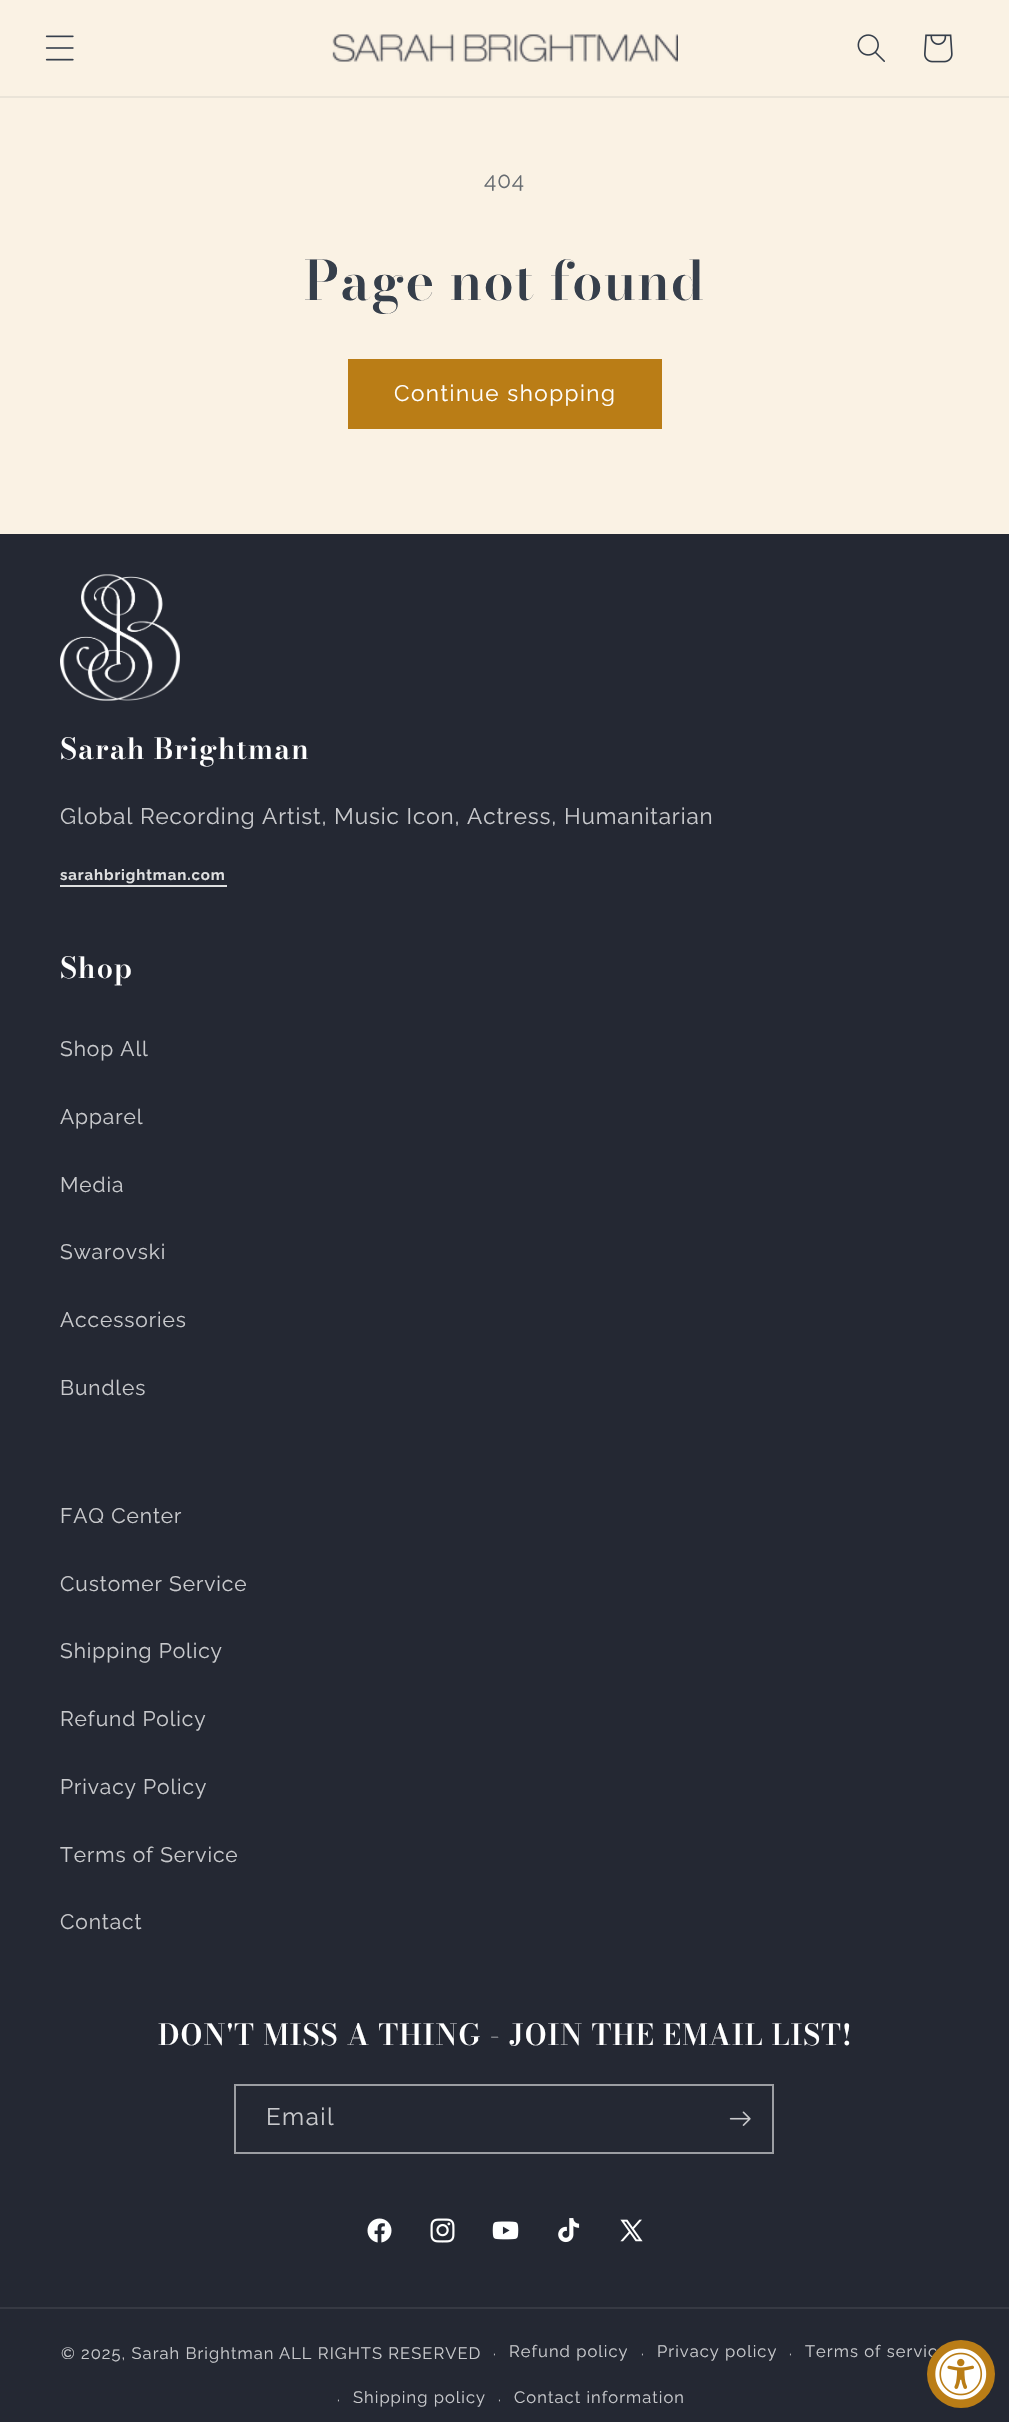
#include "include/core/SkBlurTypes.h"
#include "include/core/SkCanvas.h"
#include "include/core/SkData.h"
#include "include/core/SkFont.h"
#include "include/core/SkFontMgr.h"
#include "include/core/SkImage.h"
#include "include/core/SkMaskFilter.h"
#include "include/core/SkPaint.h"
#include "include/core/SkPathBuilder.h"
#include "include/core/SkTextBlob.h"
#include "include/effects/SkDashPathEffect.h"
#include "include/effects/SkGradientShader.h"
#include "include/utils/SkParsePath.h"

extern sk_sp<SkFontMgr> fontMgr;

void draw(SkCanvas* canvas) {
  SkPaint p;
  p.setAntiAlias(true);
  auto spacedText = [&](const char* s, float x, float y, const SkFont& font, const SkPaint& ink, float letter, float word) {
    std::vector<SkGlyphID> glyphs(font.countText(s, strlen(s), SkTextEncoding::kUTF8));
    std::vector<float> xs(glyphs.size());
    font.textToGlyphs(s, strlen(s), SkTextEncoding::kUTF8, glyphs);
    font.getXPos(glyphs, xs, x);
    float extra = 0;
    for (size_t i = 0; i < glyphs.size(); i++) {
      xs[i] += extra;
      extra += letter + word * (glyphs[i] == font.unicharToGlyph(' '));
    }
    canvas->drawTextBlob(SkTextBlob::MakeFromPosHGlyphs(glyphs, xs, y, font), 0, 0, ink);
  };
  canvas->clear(SkColorSetRGB(250, 242, 228));
  p.setColor(SkColorSetRGB(234, 228, 216));
  canvas->drawRect(SkRect::MakeLTRB(0, 96, 1009, 98), p);
  canvas->drawImageRect(SkImages::DeferredFromEncodedData(SkData::MakeFromFileName("images/1.png")), SkRect::MakeLTRB(45, 35, 74, 61), SkSamplingOptions());
  canvas->drawImageRect(SkImages::DeferredFromEncodedData(SkData::MakeFromFileName("images/2.png")), SkRect::MakeLTRB(332, 34, 678, 62), SkSamplingOptions());
  canvas->drawImageRect(SkImages::DeferredFromEncodedData(SkData::MakeFromFileName("images/3.png")), SkRect::MakeLTRB(857, 34, 885, 62), SkSamplingOptions());
  canvas->drawImageRect(SkImages::DeferredFromEncodedData(SkData::MakeFromFileName("images/4.png")), SkRect::MakeLTRB(924, 34, 953, 63), SkSamplingOptions());
  p.setColor(SkColorSetRGB(186, 125, 22));
  canvas->drawRect(SkRect::MakeLTRB(348, 359, 662, 429), p);
  p.setColor(SkColorSetRGB(36, 40, 51));
  canvas->drawRect(SkRect::MakeLTRB(0, 534, 1009, 2422), p);
  canvas->drawImageRect(SkImages::DeferredFromEncodedData(SkData::MakeFromFileName("images/5.png")), SkRect::MakeLTRB(60, 574, 180, 701), SkSamplingOptions());
  p.setColor(SkColorSetRGB(222, 223, 224));
  canvas->drawRect(SkRect::MakeLTRB(60, 885, 227, 887), p);
  p.setStyle(SkPaint::kStroke_Style);
  p.setStrokeWidth(2);
  p.setColor(SkColorSetRGB(156, 158, 163));
  canvas->drawRect(SkRect::MakeLTRB(235, 2085, 773, 2153), p);
  canvas->drawImageRect(SkImages::DeferredFromEncodedData(SkData::MakeFromFileName("images/6.png")), SkRect::MakeLTRB(729, 2111, 751, 2126), SkSamplingOptions());
  canvas->drawImageRect(SkImages::DeferredFromEncodedData(SkData::MakeFromFileName("images/7.png")), SkRect::MakeLTRB(367, 2218, 392, 2243), SkSamplingOptions());
  canvas->drawImageRect(SkImages::DeferredFromEncodedData(SkData::MakeFromFileName("images/8.png")), SkRect::MakeLTRB(430, 2218, 455, 2243), SkSamplingOptions());
  canvas->drawImageRect(SkImages::DeferredFromEncodedData(SkData::MakeFromFileName("images/9.png")), SkRect::MakeLTRB(492, 2221, 519, 2240), SkSamplingOptions());
  canvas->drawImageRect(SkImages::DeferredFromEncodedData(SkData::MakeFromFileName("images/10.png")), SkRect::MakeLTRB(558, 2218, 580, 2243), SkSamplingOptions());
  canvas->drawImageRect(SkImages::DeferredFromEncodedData(SkData::MakeFromFileName("images/11.png")), SkRect::MakeLTRB(620, 2219, 643, 2242), SkSamplingOptions());
  p.setStyle(SkPaint::kFill_Style);
  p.setColor(SkColorSetRGB(54, 57, 67));
  canvas->drawRect(SkRect::MakeLTRB(0, 2307, 1009, 2309), p);
  SkFont font1(fontMgr->matchFamilyStyle("Raleway", SkFontStyle::Normal()), 22.5f);
  font1.setSubpixel(true);
  p.setColor(SkColorSetRGB(103, 108, 113));
  spacedText("404", 484, 188, font1, p, 0.9f, 0);
  SkFont font2(fontMgr->matchFamilyStyle("Bodoni Moda", SkFontStyle(600, SkFontStyle::kNormal_Width, SkFontStyle::kUpright_Slant)), 54);
  font2.setSubpixel(true);
  p.setColor(SkColorSetRGB(54, 63, 75));
  spacedText("Page not found", 304, 300, font2, p, 1.1f, 0);
  p.setColor(SK_ColorWHITE);
  spacedText("Continue shopping", 394, 401, font1, p, 1.5f, 0);
  SkFont font3(fontMgr->matchFamilyStyle("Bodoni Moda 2", SkFontStyle(600, SkFontStyle::kNormal_Width, SkFontStyle::kUpright_Slant)), 28.8f);
  font3.setSubpixel(true);
  spacedText("Sarah Brightman", 60, 759, font3, p, 1.1f, 0);
  p.setColor(SkColorSetRGB(200, 201, 204));
  spacedText("Global Recording Artist, Music Icon, Actress, Humanitarian", 60, 824, font1, p, 0.9f, 0);
  SkFont font4(fontMgr->matchFamilyStyle("Raleway", SkFontStyle::Bold()), 15);
  font4.setSubpixel(true);
  p.setColor(SkColorSetRGB(222, 223, 224));
  spacedText("sarahbrightman.com", 60, 880, font4, p, 0.9f, 0);
  p.setColor(SK_ColorWHITE);
  spacedText("Shop", 60, 978, font3, p, 1.1f, 0);
  SkFont font5(fontMgr->matchFamilyStyle("Raleway", SkFontStyle::Normal()), 21);
  font5.setSubpixel(true);
  p.setColor(SkColorSetRGB(200, 201, 204));
  spacedText("Shop All", 60, 1056, font5, p, 0.9f, 0);
  spacedText("Apparel", 60, 1124, font5, p, 0.9f, 0);
  spacedText("Media", 60, 1192, font5, p, 0.9f, 0);
  spacedText("Swarovski", 60, 1259, font5, p, 0.9f, 0);
  spacedText("Accessories", 60, 1327, font5, p, 0.9f, 0);
  spacedText("Bundles", 60, 1395, font5, p, 0.9f, 0);
  spacedText("FAQ Center", 60, 1523, font5, p, 0.9f, 0);
  spacedText("Customer Service", 60, 1591, font5, p, 0.9f, 0);
  spacedText("Shipping Policy", 60, 1658, font5, p, 0.9f, 0);
  spacedText("Refund Policy", 60, 1726, font5, p, 0.9f, 0);
  spacedText("Privacy Policy", 60, 1794, font5, p, 0.9f, 0);
  spacedText("Terms of Service", 60, 1862, font5, p, 0.9f, 0);
  spacedText("Contact", 60, 1929, font5, p, 0.9f, 0);
  p.setColor(SK_ColorWHITE);
  spacedText("DON'T MISS A THING - JOIN THE EMAIL LIST!", 158, 2045, font3, p, 1.1f, 0);
  SkFont font6(fontMgr->matchFamilyStyle("Raleway", SkFontStyle::Normal()), 24);
  font6.setSubpixel(true);
  p.setColor(SkColorSetRGB(200, 201, 204));
  spacedText("Email", 266, 2125, font6, p, 1.5f, 0);
  SkFont font7(fontMgr->matchFamilyStyle("Raleway", SkFontStyle::Normal()), 16.5f);
  font7.setSubpixel(true);
  spacedText("© 2025, Sarah Brightman", 61, 2359, font7, p, 1.05f, 0);
  SkFont font8(fontMgr->matchFamilyStyle("Raleway", SkFontStyle::Normal()), 15);
  font8.setSubpixel(true);
  spacedText("·", 493, 2359, font8, p, 1.05f, 0);
  spacedText("Refund policy", 509, 2357, font7, p, 1.05f, 0);
  spacedText("·", 641, 2359, font8, p, 1.05f, 0);
  spacedText("Privacy policy", 657, 2357, font7, p, 1.05f, 0);
  spacedText("·", 789, 2359, font8, p, 1.05f, 0);
  spacedText("Terms of servic", 805, 2357, font7, p, 1.05f, 0);
  spacedText("·", 337, 2405, font8, p, 1.05f, 0);
  spacedText("Shipping policy", 353, 2403, font7, p, 1.05f, 0);
  spacedText("·", 498, 2405, font8, p, 1.05f, 0);
  spacedText("Contact information", 514, 2403, font7, p, 1.05f, 0);
  spacedText("ALL RIGHTS RESERVED", 279, 2359, font7, p, 1.05f, 0);
  p.setColor(SkColorSetRGB(186, 125, 22));
  canvas->drawCircle(961, 2374, 34, p);
  canvas->drawImageRect(SkImages::DeferredFromEncodedData(SkData::MakeFromFileName("images/12.png")), SkRect::MakeLTRB(935, 2348, 987, 2400), SkSamplingOptions());
}
